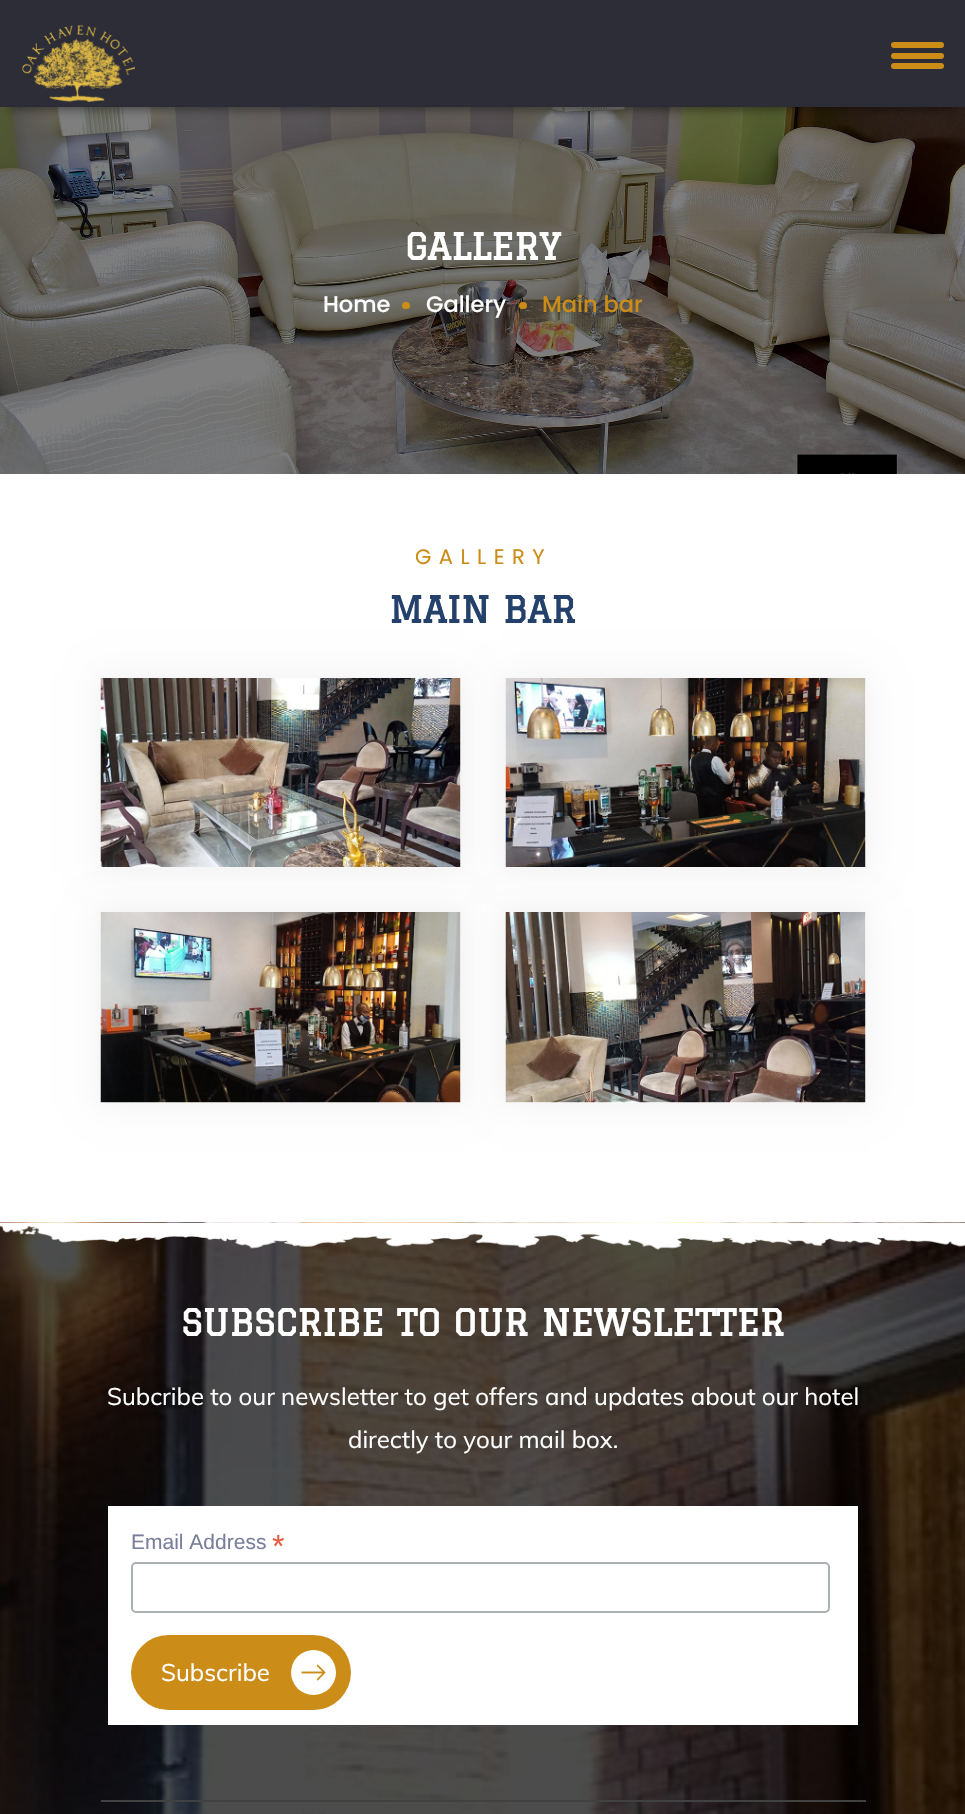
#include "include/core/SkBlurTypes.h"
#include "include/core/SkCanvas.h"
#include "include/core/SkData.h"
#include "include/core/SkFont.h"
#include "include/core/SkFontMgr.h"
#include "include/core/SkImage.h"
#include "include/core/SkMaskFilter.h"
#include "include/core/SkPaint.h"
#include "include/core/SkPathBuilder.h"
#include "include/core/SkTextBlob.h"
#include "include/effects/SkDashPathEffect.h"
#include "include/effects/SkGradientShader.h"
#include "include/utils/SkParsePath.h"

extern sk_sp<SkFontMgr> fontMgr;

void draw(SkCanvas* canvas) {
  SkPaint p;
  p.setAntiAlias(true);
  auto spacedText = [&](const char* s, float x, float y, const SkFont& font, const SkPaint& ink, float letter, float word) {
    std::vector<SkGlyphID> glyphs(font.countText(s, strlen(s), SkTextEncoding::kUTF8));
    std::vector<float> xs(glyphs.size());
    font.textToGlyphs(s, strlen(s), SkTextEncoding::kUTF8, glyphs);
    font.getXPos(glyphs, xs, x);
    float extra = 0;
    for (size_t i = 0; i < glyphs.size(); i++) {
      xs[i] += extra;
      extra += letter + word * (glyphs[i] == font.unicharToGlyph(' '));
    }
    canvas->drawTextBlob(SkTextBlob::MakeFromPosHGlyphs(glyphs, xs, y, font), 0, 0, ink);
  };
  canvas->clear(SK_ColorWHITE);
  canvas->drawImageRect(SkImages::DeferredFromEncodedData(SkData::MakeFromFileName("images/2.png")), SkRect::MakeLTRB(0, 107, 965, 474), SkSamplingOptions());
  p.setColor(SkColorSetARGB(102, 0, 0, 0));
  p.setMaskFilter(SkMaskFilter::MakeBlur(kNormal_SkBlurStyle, 4.5f));
  canvas->drawRect(SkRect::MakeLTRB(9, 21, 957, 110), p);
  p.setMaskFilter(nullptr);
  p.setColor(SkColorSetRGB(44, 45, 55));
  canvas->drawRect(SkRect::MakeLTRB(0, 0, 965, 105), p);
  p.setColor(SkColorSetRGB(43, 44, 53));
  canvas->drawRect(SkRect::MakeLTRB(0, 105, 965, 107), p);
  p.setColor(SkColorSetRGB(204, 140, 24));
  canvas->drawRoundRect(SkRect::MakeLTRB(891, 42, 944, 48), 3, 3, p);
  canvas->drawRoundRect(SkRect::MakeLTRB(891, 53, 944, 59), 3, 3, p);
  canvas->drawRoundRect(SkRect::MakeLTRB(891, 63, 944, 69), 3, 3, p);
  canvas->drawImageRect(SkImages::DeferredFromEncodedData(SkData::MakeFromFileName("images/1.png")), SkRect::MakeLTRB(22, 25, 135, 102), SkSamplingOptions());
  canvas->drawRoundRect(SkRect::MakeLTRB(402, 302, 410, 309), 3.5f, 3.5f, p);
  canvas->drawRoundRect(SkRect::MakeLTRB(519, 302, 527, 309), 3.5f, 3.5f, p);
  p.setColor(SkColorSetARGB(13, 0, 0, 0));
  p.setMaskFilter(SkMaskFilter::MakeBlur(kNormal_SkBlurStyle, 15));
  canvas->drawRect(SkRect::MakeLTRB(96, 674, 465, 872), p);
  p.setMaskFilter(nullptr);
  p.setColor(SK_ColorWHITE);
  canvas->drawRect(SkRect::MakeLTRB(460, 678, 461, 867), p);
  canvas->drawImageRect(SkImages::DeferredFromEncodedData(SkData::MakeFromFileName("images/3.png")), SkRect::MakeLTRB(100, 678, 461, 867), SkSamplingOptions());
  p.setColor(SkColorSetARGB(13, 0, 0, 0));
  p.setMaskFilter(SkMaskFilter::MakeBlur(kNormal_SkBlurStyle, 15));
  canvas->drawRect(SkRect::MakeLTRB(501, 674, 870, 872), p);
  p.setMaskFilter(nullptr);
  p.setColor(SK_ColorWHITE);
  canvas->drawRect(SkRect::MakeLTRB(865, 678, 866, 867), p);
  canvas->drawImageRect(SkImages::DeferredFromEncodedData(SkData::MakeFromFileName("images/4.png")), SkRect::MakeLTRB(505, 678, 866, 867), SkSamplingOptions());
  p.setColor(SkColorSetARGB(13, 0, 0, 0));
  p.setMaskFilter(SkMaskFilter::MakeBlur(kNormal_SkBlurStyle, 15));
  canvas->drawRect(SkRect::MakeLTRB(96, 908, 465, 1107), p);
  p.setMaskFilter(nullptr);
  p.setColor(SK_ColorWHITE);
  canvas->drawRect(SkRect::MakeLTRB(101, 912, 461, 1103), p);
  canvas->drawImageRect(SkImages::DeferredFromEncodedData(SkData::MakeFromFileName("images/5.png")), SkRect::MakeLTRB(100, 912, 461, 1103), SkSamplingOptions());
  p.setColor(SkColorSetARGB(13, 0, 0, 0));
  p.setMaskFilter(SkMaskFilter::MakeBlur(kNormal_SkBlurStyle, 15));
  canvas->drawRect(SkRect::MakeLTRB(501, 908, 870, 1107), p);
  p.setMaskFilter(nullptr);
  p.setColor(SK_ColorWHITE);
  canvas->drawRect(SkRect::MakeLTRB(506, 912, 866, 1103), p);
  canvas->drawImageRect(SkImages::DeferredFromEncodedData(SkData::MakeFromFileName("images/6.png")), SkRect::MakeLTRB(505, 912, 866, 1103), SkSamplingOptions());
  canvas->drawImageRect(SkImages::DeferredFromEncodedData(SkData::MakeFromFileName("images/7.png")), SkRect::MakeLTRB(0, 1222, 965, 1814), SkSamplingOptions());
  canvas->drawImageRect(SkImages::DeferredFromEncodedData(SkData::MakeFromFileName("images/8.png")), SkRect::MakeLTRB(0, 1222, 965, 1250), SkSamplingOptions());
  p.setColor(SkColorSetRGB(66, 65, 65));
  canvas->drawRect(SkRect::MakeLTRB(101, 1800, 866, 1802), p);
  p.setColor(SK_ColorWHITE);
  canvas->drawRect(SkRect::MakeLTRB(108, 1506, 858, 1725), p);
  p.setStyle(SkPaint::kStroke_Style);
  p.setStrokeWidth(2);
  p.setColor(SkColorSetRGB(171, 176, 178));
  canvas->drawRoundRect(SkRect::MakeLTRB(132, 1563, 829, 1612), 4, 4, p);
  p.setStyle(SkPaint::kFill_Style);
  p.setColor(SkColorSetRGB(204, 140, 24));
  canvas->drawRoundRect(SkRect::MakeLTRB(131, 1635, 351, 1710), 37.5f, 37.5f, p);
  p.setColor(SK_ColorWHITE);
  canvas->drawCircle(313.5f, 1672.5f, 22.5f, p);
  canvas->drawImageRect(SkImages::DeferredFromEncodedData(SkData::MakeFromFileName("images/9.png")), SkRect::MakeLTRB(301, 1664, 326, 1681), SkSamplingOptions());
  SkFont font1(fontMgr->matchFamilyStyle("Graduate", SkFontStyle::Bold()), 36);
  font1.setSubpixel(true);
  canvas->drawString("GALLERY", 405, 260, font1, p);
  SkFont font2(fontMgr->matchFamilyStyle("Poppins", SkFontStyle(500, SkFontStyle::kNormal_Width, SkFontStyle::kUpright_Slant)), 22.5f);
  font2.setSubpixel(true);
  canvas->drawString("Home", 323, 312, font2, p);
  canvas->drawString("Gallery", 426, 312, font2, p);
  p.setColor(SkColorSetRGB(204, 140, 24));
  canvas->drawString("Main bar", 542, 312, font2, p);
  SkFont font3(fontMgr->matchFamilyStyle("Poppins", SkFontStyle::Normal()), 21);
  font3.setSubpixel(true);
  spacedText("GALLERY", 415, 564, font3, p, 7.5f, 0);
  p.setColor(SkColorSetRGB(36, 65, 107));
  canvas->drawString("MAIN BAR", 389, 623, font1, p);
  p.setColor(SK_ColorWHITE);
  canvas->drawString("SUBSCRIBE TO OUR NEWSLETTER", 181, 1336, font1, p);
  SkFont font4(fontMgr->matchFamilyStyle("Muli", SkFontStyle::Normal()), 24);
  font4.setSubpixel(true);
  canvas->drawString("Subcribe to our newsletter to get offers and updates about our hotel", 107, 1405, font4, p);
  canvas->drawString("directly to your mail box.", 348, 1448, font4, p);
  SkFont font5(fontMgr->matchFamilyStyle("Liberation Sans", SkFontStyle::Normal()), 21);
  font5.setSubpixel(true);
  p.setColor(SkColorSetRGB(122, 126, 154));
  canvas->drawString("Email Address", 131, 1549, font5, p);
  SkFont font6(fontMgr->matchFamilyStyle("Liberation Sans", SkFontStyle::Normal()), 32);
  font6.setSubpixel(true);
  p.setColor(SkColorSetRGB(232, 92, 65));
  canvas->drawString("*", 272, 1557, font6, p);
  p.setColor(SK_ColorWHITE);
  canvas->drawString("Subscribe", 161, 1681, font4, p);
}
